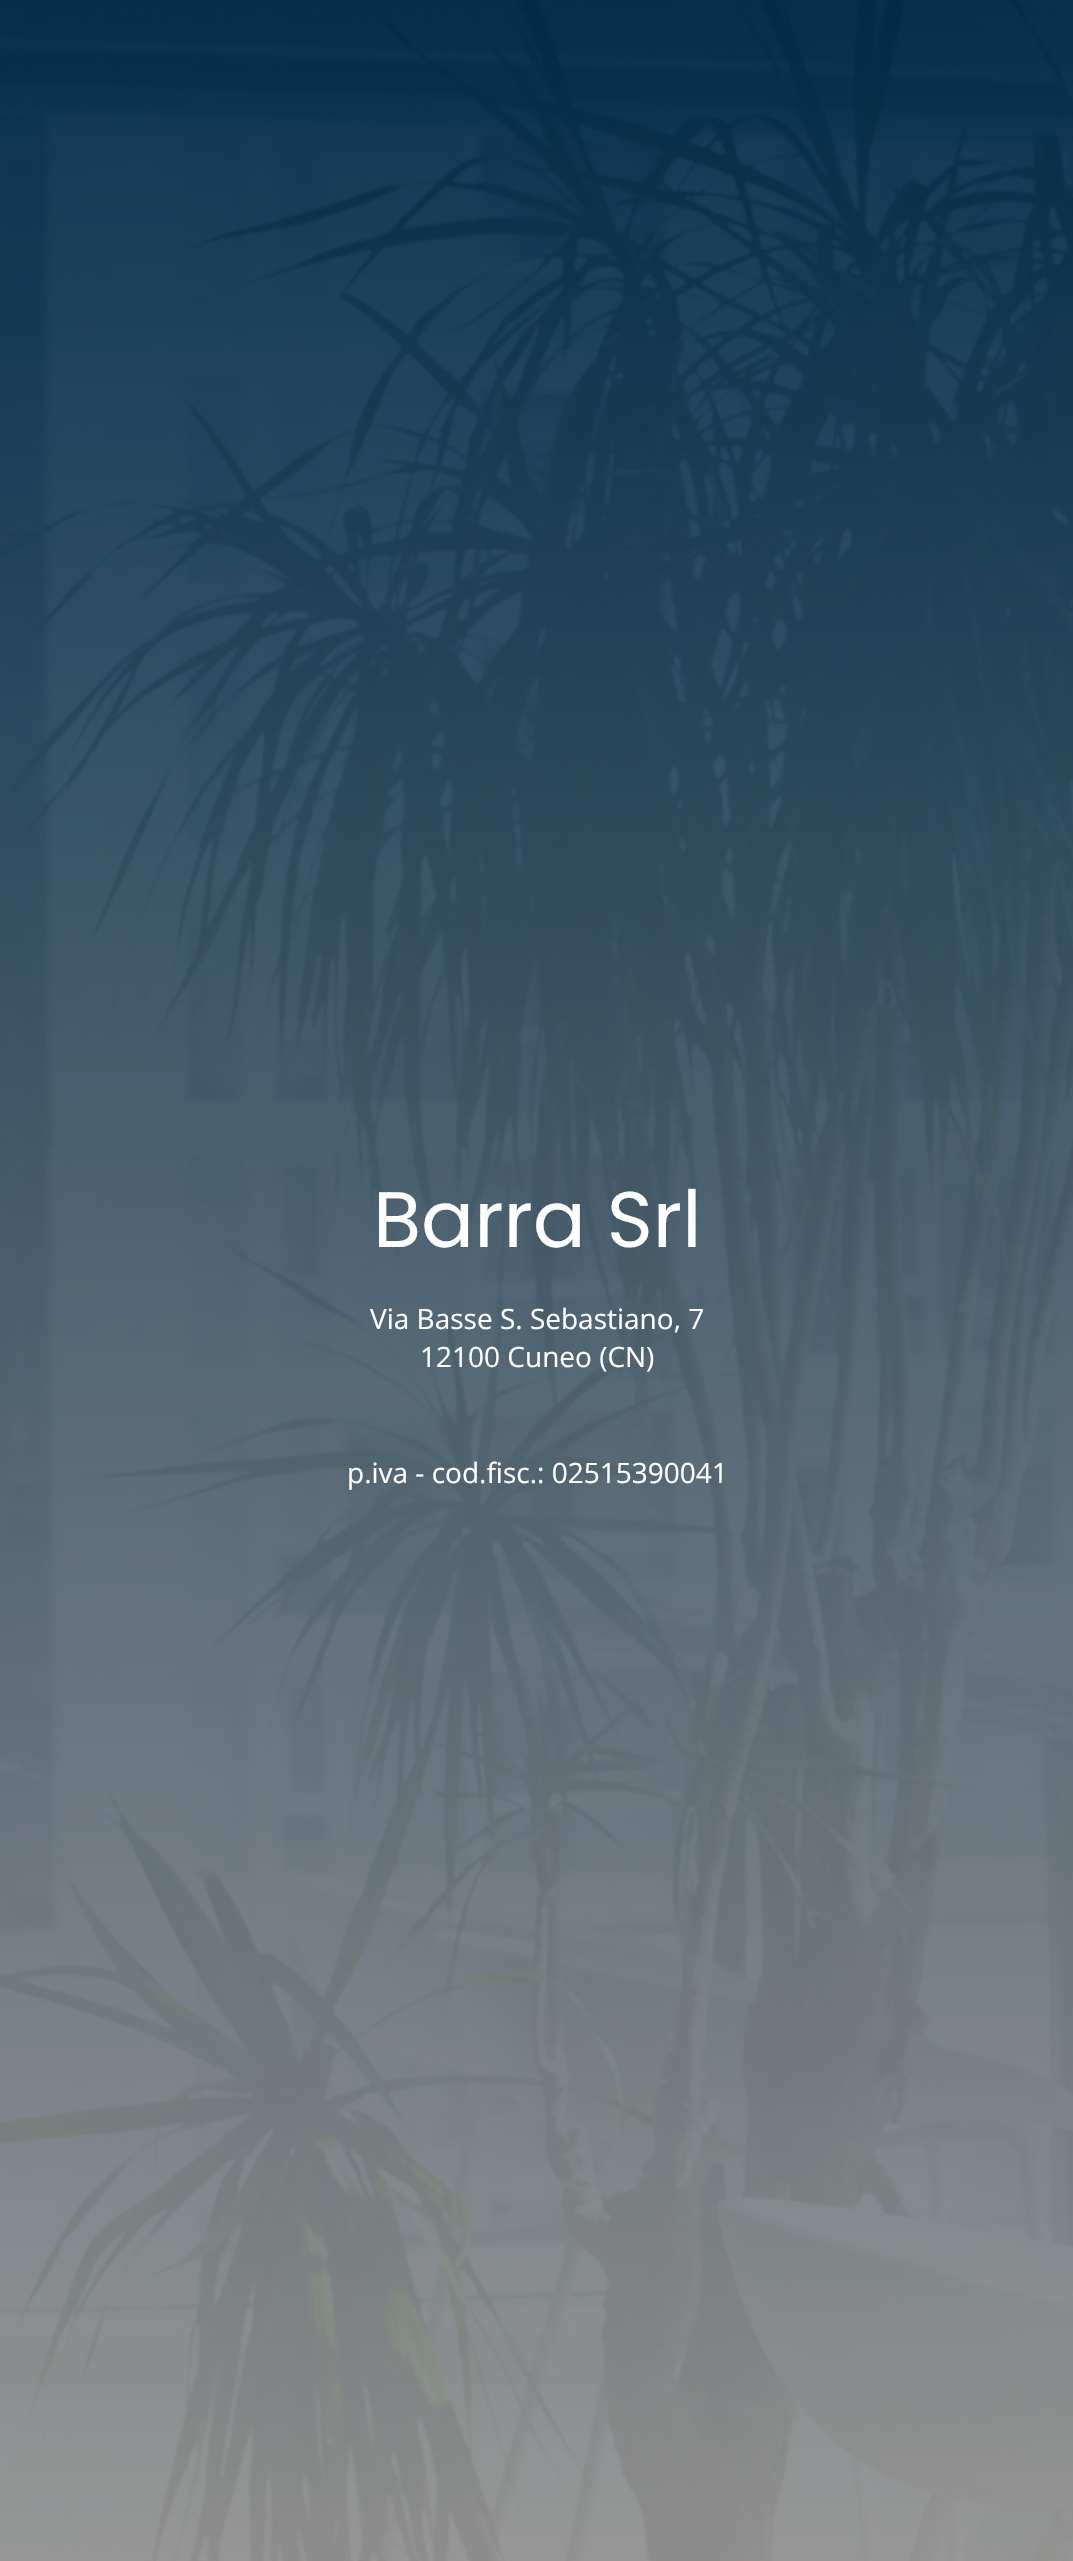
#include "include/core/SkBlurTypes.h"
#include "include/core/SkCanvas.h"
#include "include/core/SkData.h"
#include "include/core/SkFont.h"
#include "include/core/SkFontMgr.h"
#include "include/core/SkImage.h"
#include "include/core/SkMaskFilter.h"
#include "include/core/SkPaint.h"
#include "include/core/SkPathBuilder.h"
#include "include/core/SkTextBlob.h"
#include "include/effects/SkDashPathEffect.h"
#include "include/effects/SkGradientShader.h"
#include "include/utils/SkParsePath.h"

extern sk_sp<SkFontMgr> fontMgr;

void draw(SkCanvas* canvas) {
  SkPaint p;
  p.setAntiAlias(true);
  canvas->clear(SK_ColorWHITE);
  canvas->drawImageRect(SkImages::DeferredFromEncodedData(SkData::MakeFromFileName("images/1.png")), SkRect::MakeLTRB(0, 0, 1073, 2561), SkSamplingOptions());
  SkFont font1(fontMgr->matchFamilyStyle("Poppins", SkFontStyle::Normal()), 78.5f);
  font1.setSubpixel(true);
  p.setColor(SK_ColorWHITE);
  canvas->drawString("Barra Srl", 373, 1247, font1, p);
  SkFont font2(fontMgr->matchFamilyStyle("Open Sans", SkFontStyle::Normal()), 28);
  font2.setSubpixel(true);
  canvas->drawString("Via Basse S. Sebastiano, 7", 370, 1329, font2, p);
  canvas->drawString("12100 Cuneo (CN)", 420, 1367, font2, p);
  canvas->drawString("p.iva - cod.fisc.: 02515390041", 347, 1483, font2, p);
}
